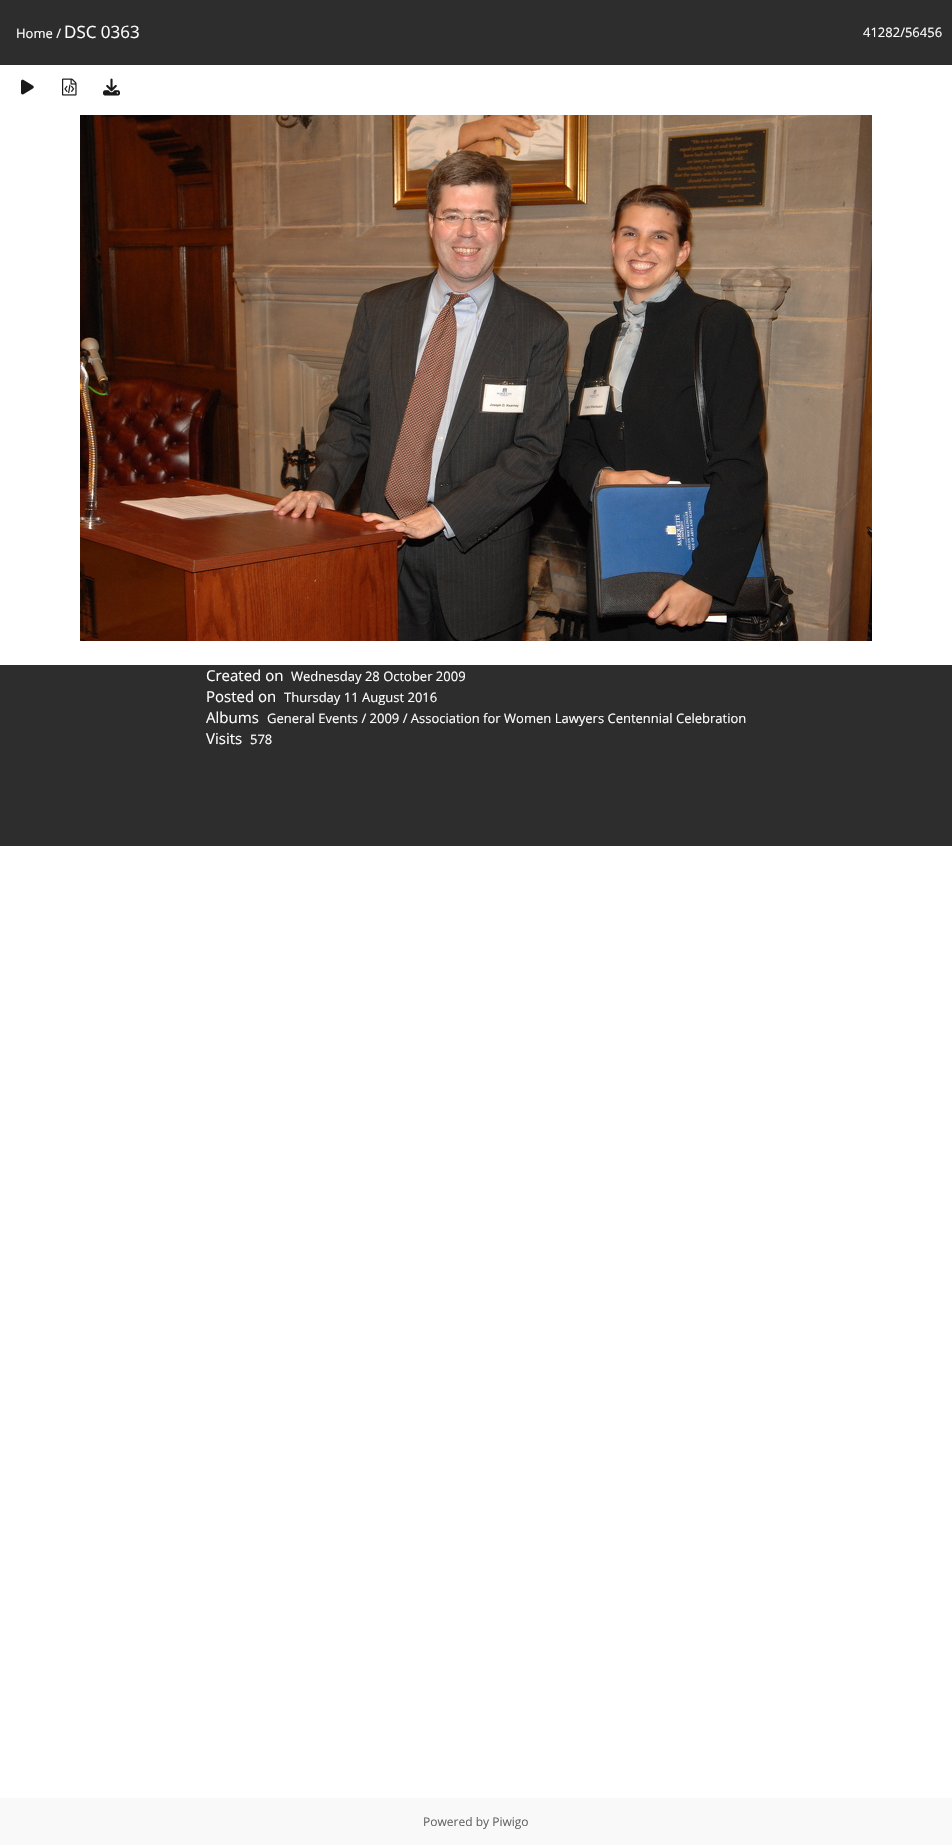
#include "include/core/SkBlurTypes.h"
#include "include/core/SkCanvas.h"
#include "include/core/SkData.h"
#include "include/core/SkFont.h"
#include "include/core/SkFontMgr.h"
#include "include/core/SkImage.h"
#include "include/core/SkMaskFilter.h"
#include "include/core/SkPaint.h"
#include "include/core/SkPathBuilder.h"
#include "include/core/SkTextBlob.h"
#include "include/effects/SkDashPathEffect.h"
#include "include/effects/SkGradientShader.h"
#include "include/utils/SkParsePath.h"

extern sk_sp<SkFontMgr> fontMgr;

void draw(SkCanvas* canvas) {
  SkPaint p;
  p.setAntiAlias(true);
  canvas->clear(SK_ColorWHITE);
  p.setColor(SkColorSetRGB(45, 45, 45));
  canvas->drawRect(SkRect::MakeLTRB(0, 0, 952, 65), p);
  canvas->drawImageRect(SkImages::DeferredFromEncodedData(SkData::MakeFromFileName("images/1.png")), SkRect::MakeLTRB(21, 79, 34, 95), SkSamplingOptions());
  canvas->drawImageRect(SkImages::DeferredFromEncodedData(SkData::MakeFromFileName("images/2.png")), SkRect::MakeLTRB(62, 78, 77, 96), SkSamplingOptions());
  canvas->drawImageRect(SkImages::DeferredFromEncodedData(SkData::MakeFromFileName("images/3.png")), SkRect::MakeLTRB(103, 78, 120, 96), SkSamplingOptions());
  canvas->drawImageRect(SkImages::DeferredFromEncodedData(SkData::MakeFromFileName("images/4.png")), SkRect::MakeLTRB(80, 115, 872, 641), SkSamplingOptions());
  canvas->drawRect(SkRect::MakeLTRB(0, 665, 952, 846), p);
  p.setColor(SkColorSetRGB(249, 249, 249));
  canvas->drawRect(SkRect::MakeLTRB(0, 1798, 952, 1845), p);
  SkFont font1(fontMgr->matchFamilyStyle("Open Sans", SkFontStyle::Normal()), 13);
  font1.setSubpixel(true);
  p.setColor(SK_ColorWHITE);
  canvas->drawString("Home /", 16, 38, font1, p);
  SkFont font2(fontMgr->matchFamilyStyle("Open Sans", SkFontStyle::Normal()), 17);
  font2.setSubpixel(true);
  canvas->drawString("DSC 0363", 64, 38, font2, p);
  canvas->drawString("41282/56456", 863, 37, font1, p);
  SkFont font3(fontMgr->matchFamilyStyle("Open Sans", SkFontStyle::Normal()), 15);
  font3.setSubpixel(true);
  canvas->drawString("Created on", 206, 681, font3, p);
  canvas->drawString("Wednesday 28 October 2009", 291, 681, font1, p);
  canvas->drawString("Posted on", 206, 702, font3, p);
  canvas->drawString("Thursday 11 August 2016", 284, 702, font1, p);
  canvas->drawString("Albums", 206, 723, font3, p);
  canvas->drawString("General Events / 2009 / Association for Women Lawyers Centennial Celebration", 267, 723, font1, p);
  canvas->drawString("Visits", 206, 744, font3, p);
  canvas->drawString("578", 250, 744, font1, p);
  SkFont font4(fontMgr->matchFamilyStyle("Open Sans", SkFontStyle::Normal()), 12);
  font4.setSubpixel(true);
  p.setColor(SkColorSetRGB(102, 102, 102));
  canvas->drawString("Powered by Piwigo", 423, 1826, font4, p);
}
